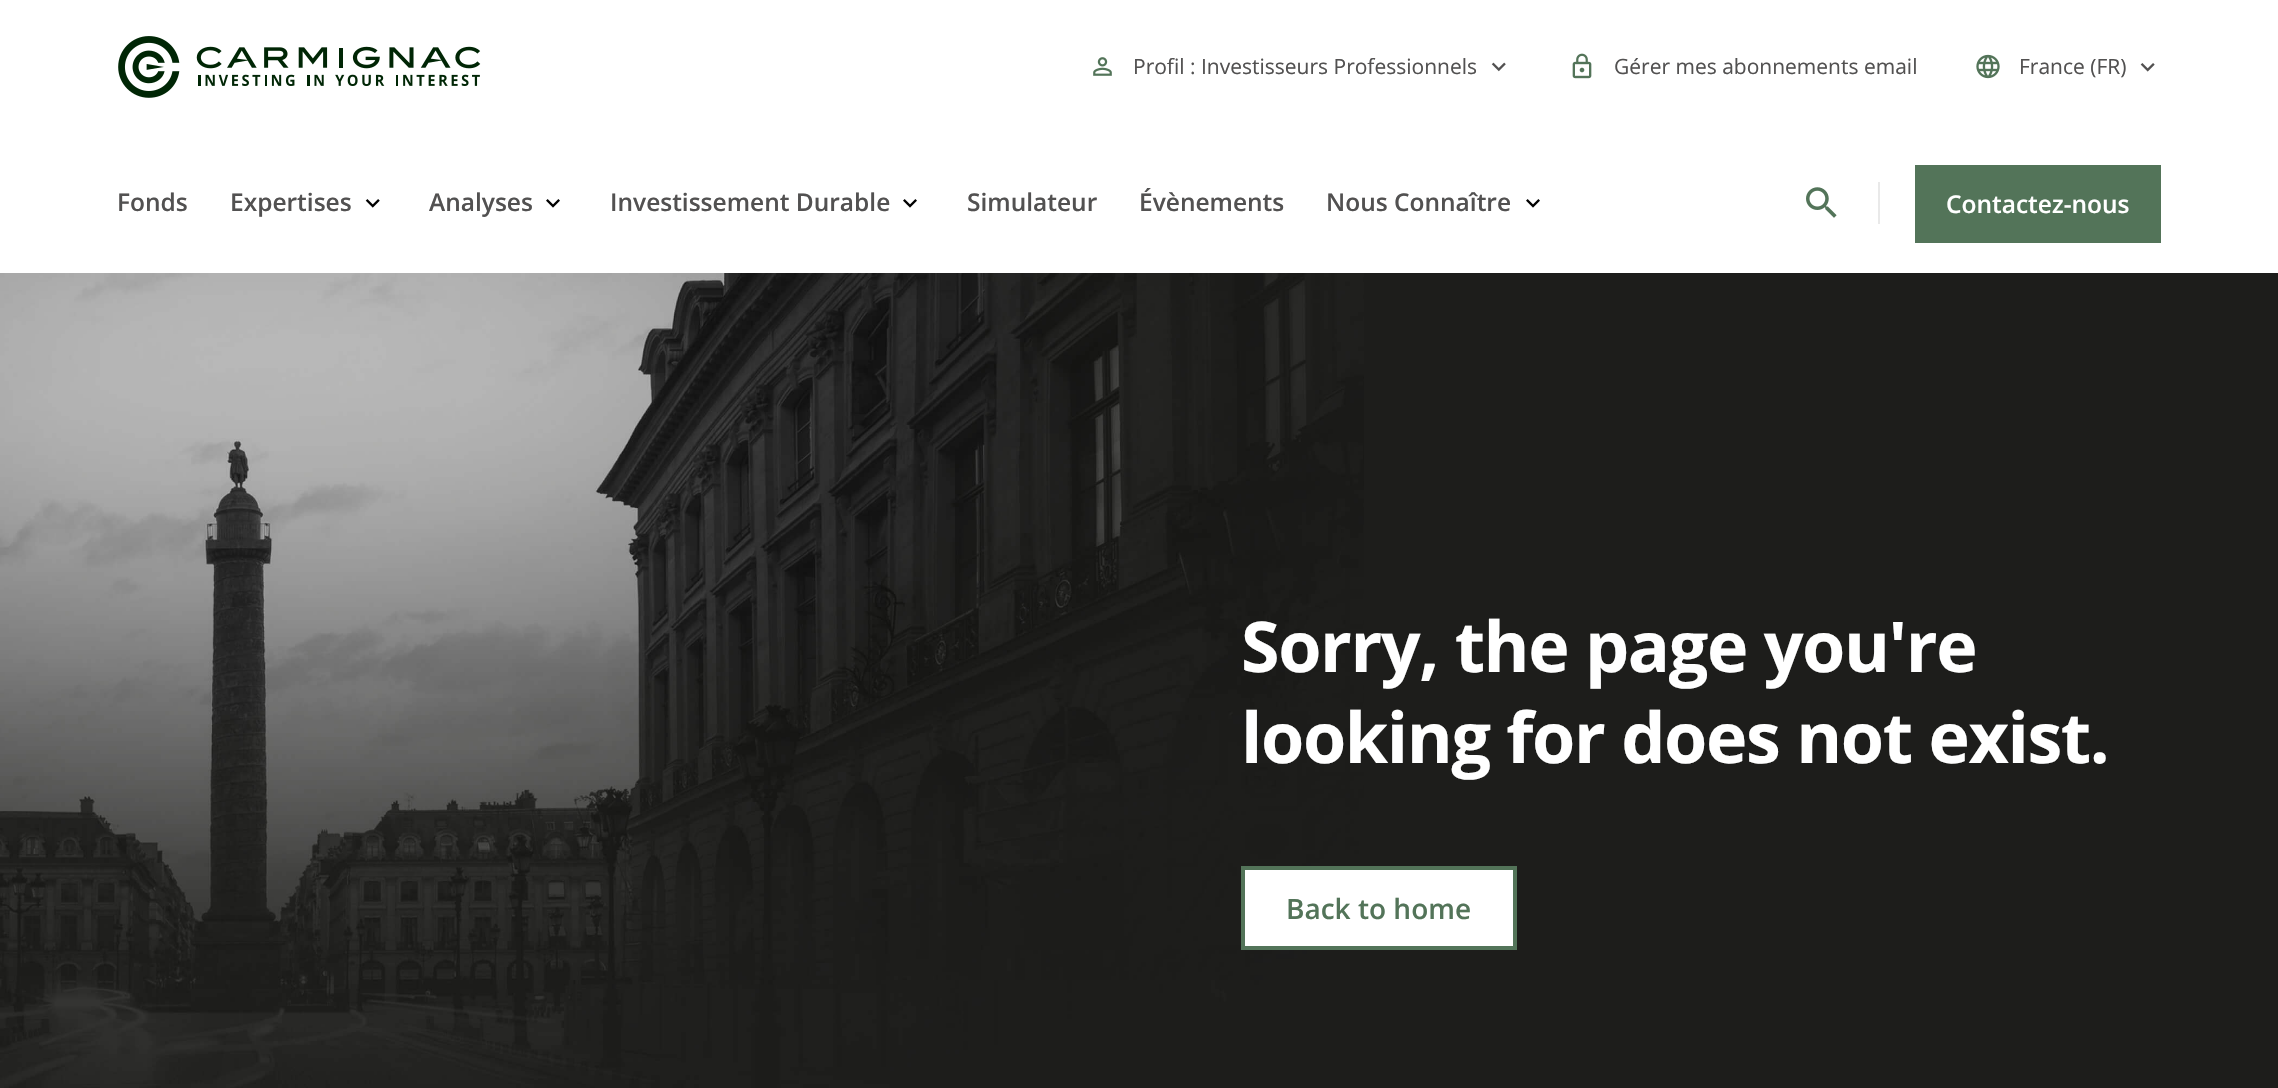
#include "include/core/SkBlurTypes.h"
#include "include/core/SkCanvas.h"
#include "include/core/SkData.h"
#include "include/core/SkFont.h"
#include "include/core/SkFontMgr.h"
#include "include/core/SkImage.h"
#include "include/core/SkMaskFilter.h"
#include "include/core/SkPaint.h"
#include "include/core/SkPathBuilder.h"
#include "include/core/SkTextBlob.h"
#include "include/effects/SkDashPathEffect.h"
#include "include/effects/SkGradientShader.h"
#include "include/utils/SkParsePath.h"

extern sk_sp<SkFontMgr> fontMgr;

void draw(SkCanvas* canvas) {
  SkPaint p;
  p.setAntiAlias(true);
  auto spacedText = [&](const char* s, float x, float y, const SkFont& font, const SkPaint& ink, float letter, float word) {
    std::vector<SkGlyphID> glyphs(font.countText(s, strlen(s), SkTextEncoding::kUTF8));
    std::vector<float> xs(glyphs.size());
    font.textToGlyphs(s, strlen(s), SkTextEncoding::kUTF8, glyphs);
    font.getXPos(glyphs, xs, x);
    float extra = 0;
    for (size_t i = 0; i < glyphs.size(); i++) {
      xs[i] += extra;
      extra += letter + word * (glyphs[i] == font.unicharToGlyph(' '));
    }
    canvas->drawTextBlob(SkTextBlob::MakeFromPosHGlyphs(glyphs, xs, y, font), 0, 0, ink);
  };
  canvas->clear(SK_ColorWHITE);
  canvas->drawImageRect(SkImages::DeferredFromEncodedData(SkData::MakeFromFileName("images/1.png")), SkRect::MakeLTRB(118, 36, 481, 98), SkSamplingOptions());
  canvas->drawImageRect(SkImages::DeferredFromEncodedData(SkData::MakeFromFileName("images/2.png")), SkRect::MakeLTRB(1093, 57, 1112, 76), SkSamplingOptions());
  canvas->drawImageRect(SkImages::DeferredFromEncodedData(SkData::MakeFromFileName("images/3.png")), SkRect::MakeLTRB(1491, 62, 1506, 72), SkSamplingOptions());
  canvas->drawImageRect(SkImages::DeferredFromEncodedData(SkData::MakeFromFileName("images/4.png")), SkRect::MakeLTRB(1572, 53, 1592, 79), SkSamplingOptions());
  canvas->drawImageRect(SkImages::DeferredFromEncodedData(SkData::MakeFromFileName("images/5.png")), SkRect::MakeLTRB(1976, 54, 2000, 79), SkSamplingOptions());
  canvas->drawImageRect(SkImages::DeferredFromEncodedData(SkData::MakeFromFileName("images/6.png")), SkRect::MakeLTRB(2140, 63, 2155, 72), SkSamplingOptions());
  canvas->drawImageRect(SkImages::DeferredFromEncodedData(SkData::MakeFromFileName("images/7.png")), SkRect::MakeLTRB(365, 199, 380, 208), SkSamplingOptions());
  canvas->drawImageRect(SkImages::DeferredFromEncodedData(SkData::MakeFromFileName("images/8.png")), SkRect::MakeLTRB(546, 199, 560, 208), SkSamplingOptions());
  canvas->drawImageRect(SkImages::DeferredFromEncodedData(SkData::MakeFromFileName("images/8.png")), SkRect::MakeLTRB(903, 199, 917, 208), SkSamplingOptions());
  canvas->drawImageRect(SkImages::DeferredFromEncodedData(SkData::MakeFromFileName("images/8.png")), SkRect::MakeLTRB(1526, 199, 1540, 208), SkSamplingOptions());
  canvas->drawImageRect(SkImages::DeferredFromEncodedData(SkData::MakeFromFileName("images/9.png")), SkRect::MakeLTRB(1806, 187, 1837, 218), SkSamplingOptions());
  p.setColor(SkColorSetRGB(233, 233, 233));
  canvas->drawRect(SkRect::MakeLTRB(1878, 182, 1880, 224), p);
  p.setColor(SkColorSetRGB(83, 116, 89));
  canvas->drawRect(SkRect::MakeLTRB(1915, 165, 2161, 243), p);
  p.setColor(SkColorSetRGB(29, 29, 27));
  canvas->drawRect(SkRect::MakeLTRB(1364, 273, 2278, 1088), p);
  canvas->drawImageRect(SkImages::DeferredFromEncodedData(SkData::MakeFromFileName("images/10.png")), SkRect::MakeLTRB(0, 273, 1364, 1088), SkSamplingOptions());
  p.setColor(SK_ColorWHITE);
  canvas->drawRect(SkRect::MakeLTRB(1243, 868, 1515, 948), p);
  p.setStyle(SkPaint::kStroke_Style);
  p.setStrokeWidth(4);
  p.setColor(SkColorSetRGB(83, 116, 89));
  canvas->drawRect(SkRect::MakeLTRB(1243, 868, 1515, 948), p);
  SkFont font1(fontMgr->matchFamilyStyle("Open Sans", SkFontStyle::Normal()), 21);
  font1.setSubpixel(true);
  p.setStyle(SkPaint::kFill_Style);
  p.setColor(SkColorSetRGB(82, 81, 81));
  canvas->drawString("Profil : Investisseurs Professionnels", 1133, 74, font1, p);
  canvas->drawString("Gérer mes abonnements email", 1614, 74, font1, p);
  canvas->drawString("France (FR)", 2019, 74, font1, p);
  SkFont font2(fontMgr->matchFamilyStyle("Open Sans", SkFontStyle(600, SkFontStyle::kNormal_Width, SkFontStyle::kUpright_Slant)), 24.5f);
  font2.setSubpixel(true);
  canvas->drawString("Fonds", 117, 211, font2, p);
  canvas->drawString("Expertises", 230, 211, font2, p);
  canvas->drawString("Analyses", 429, 211, font2, p);
  canvas->drawString("Investissement Durable", 610, 211, font2, p);
  canvas->drawString("Simulateur", 967, 211, font2, p);
  canvas->drawString("Évènements", 1139, 211, font2, p);
  canvas->drawString("Nous Connaître", 1326, 211, font2, p);
  p.setColor(SK_ColorWHITE);
  canvas->drawString("Contactez-nous", 1946, 213, font2, p);
  SkFont font3(fontMgr->matchFamilyStyle("Open Sans", SkFontStyle::Bold()), 70);
  font3.setSubpixel(true);
  spacedText("Sorry, the page you're", 1241, 672, font3, p, -1.4f, 0);
  spacedText("looking for does not exist.", 1241, 763, font3, p, -1.4f, 0);
  SkFont font4(fontMgr->matchFamilyStyle("Open Sans", SkFontStyle(600, SkFontStyle::kNormal_Width, SkFontStyle::kUpright_Slant)), 28);
  font4.setSubpixel(true);
  p.setColor(SkColorSetRGB(83, 116, 89));
  canvas->drawString("Back to home", 1286, 919, font4, p);
}
